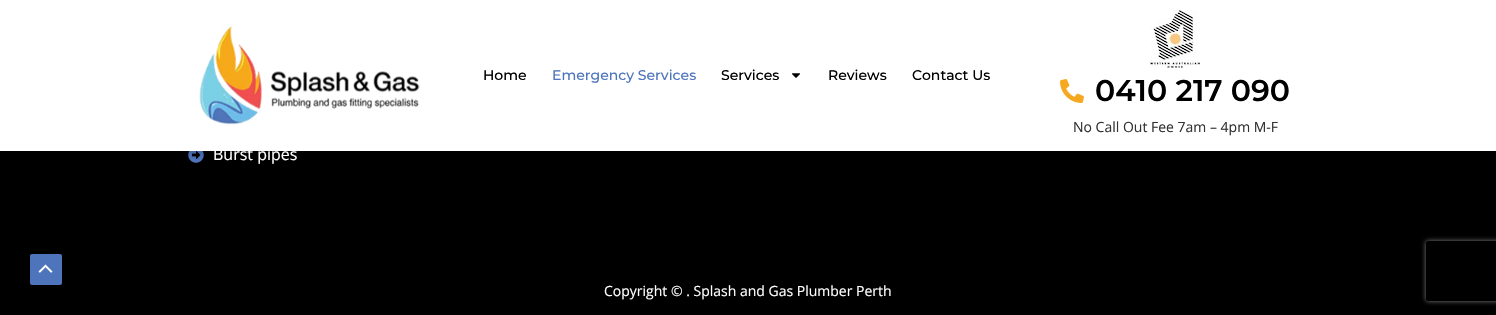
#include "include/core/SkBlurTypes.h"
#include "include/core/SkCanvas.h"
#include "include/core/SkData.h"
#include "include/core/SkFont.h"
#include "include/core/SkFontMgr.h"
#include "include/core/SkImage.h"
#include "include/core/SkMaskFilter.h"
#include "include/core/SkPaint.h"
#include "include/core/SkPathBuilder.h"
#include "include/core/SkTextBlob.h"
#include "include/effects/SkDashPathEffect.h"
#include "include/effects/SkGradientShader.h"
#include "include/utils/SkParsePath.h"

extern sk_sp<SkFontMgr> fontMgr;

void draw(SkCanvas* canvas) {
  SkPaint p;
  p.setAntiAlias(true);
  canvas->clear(SK_ColorBLACK);
  p.setColor(SkColorSetRGB(78, 117, 187));
  canvas->drawRoundRect(SkRect::MakeLTRB(30, 254, 62, 285), 2, 2, p);
  canvas->drawImageRect(SkImages::DeferredFromEncodedData(SkData::MakeFromFileName("images/1.png")), SkRect::MakeLTRB(38, 264, 53, 273), SkSamplingOptions());
  canvas->drawImageRect(SkImages::DeferredFromEncodedData(SkData::MakeFromFileName("images/6.png")), SkRect::MakeLTRB(188, 151, 204, 163), SkSamplingOptions());
  p.setColor(SkColorSetARGB(61, 0, 0, 0));
  p.setMaskFilter(SkMaskFilter::MakeBlur(kNormal_SkBlurStyle, 5));
  canvas->drawRect(SkRect::MakeLTRB(4, 10, 1492, 153), p);
  p.setMaskFilter(nullptr);
  p.setColor(SK_ColorWHITE);
  canvas->drawRect(SkRect::MakeLTRB(0, 0, 1496, 151), p);
  canvas->drawImageRect(SkImages::DeferredFromEncodedData(SkData::MakeFromFileName("images/2.png")), SkRect::MakeLTRB(199, 26, 420, 125), SkSamplingOptions());
  canvas->drawImageRect(SkImages::DeferredFromEncodedData(SkData::MakeFromFileName("images/3.png")), SkRect::MakeLTRB(792, 73, 800, 78), SkSamplingOptions());
  canvas->drawImageRect(SkImages::DeferredFromEncodedData(SkData::MakeFromFileName("images/4.png")), SkRect::MakeLTRB(1150, 10, 1200, 68), SkSamplingOptions());
  canvas->drawImageRect(SkImages::DeferredFromEncodedData(SkData::MakeFromFileName("images/5.png")), SkRect::MakeLTRB(1060, 79, 1084, 103), SkSamplingOptions());
  canvas->save();
  canvas->clipPath(SkPathBuilder(SkPathFillType::kEvenOdd).moveTo(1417, 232).lineTo(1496, 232).lineTo(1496, 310).lineTo(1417, 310).close().moveTo(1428, 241).lineTo(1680, 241).cubicTo(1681, 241, 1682, 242, 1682, 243).lineTo(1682, 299).cubicTo(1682, 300, 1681, 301, 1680, 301).lineTo(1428, 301).cubicTo(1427, 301, 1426, 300, 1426, 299).lineTo(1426, 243).cubicTo(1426, 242, 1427, 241, 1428, 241).close().detach(), true);
  p.setColor(SkColorSetRGB(128, 128, 128));
  p.setMaskFilter(SkMaskFilter::MakeBlur(kNormal_SkBlurStyle, 2.5f));
  canvas->drawRoundRect(SkRect::MakeLTRB(1426, 241, 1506, 301), 2, 2, p);
  p.setMaskFilter(nullptr);
  canvas->restore();
  SkFont font1(fontMgr->matchFamilyStyle("Montserrat", SkFontStyle(500, SkFontStyle::kNormal_Width, SkFontStyle::kUpright_Slant)), 14);
  font1.setSubpixel(true);
  p.setColor(SK_ColorBLACK);
  canvas->drawString("Home", 483, 80, font1, p);
  p.setColor(SkColorSetRGB(79, 118, 189));
  canvas->drawString("Emergency Services", 552, 80, font1, p);
  p.setColor(SK_ColorBLACK);
  canvas->drawString("Services", 721, 80, font1, p);
  canvas->drawString("Reviews", 828, 80, font1, p);
  canvas->drawString("Contact Us", 912, 80, font1, p);
  SkFont font2(fontMgr->matchFamilyStyle("Montserrat", SkFontStyle(600, SkFontStyle::kNormal_Width, SkFontStyle::kUpright_Slant)), 30);
  font2.setSubpixel(true);
  canvas->drawString("0410 217 090", 1095, 101, font2, p);
  SkFont font3(fontMgr->matchFamilyStyle("Open Sans", SkFontStyle::Normal()), 14);
  font3.setSubpixel(true);
  p.setColor(SkColorSetRGB(51, 51, 51));
  canvas->drawString("No Call Out Fee 7am – 4pm M-F", 1073, 132, font3, p);
  SkFont font4(fontMgr->matchFamilyStyle("Open Sans", SkFontStyle::Normal()), 16);
  font4.setSubpixel(true);
  p.setColor(SK_ColorWHITE);
  canvas->drawString("Burst pipes", 213, 160, font4, p);
  canvas->drawString("Copyright © . Splash and Gas Plumber Perth", 604, 296, font3, p);
}
